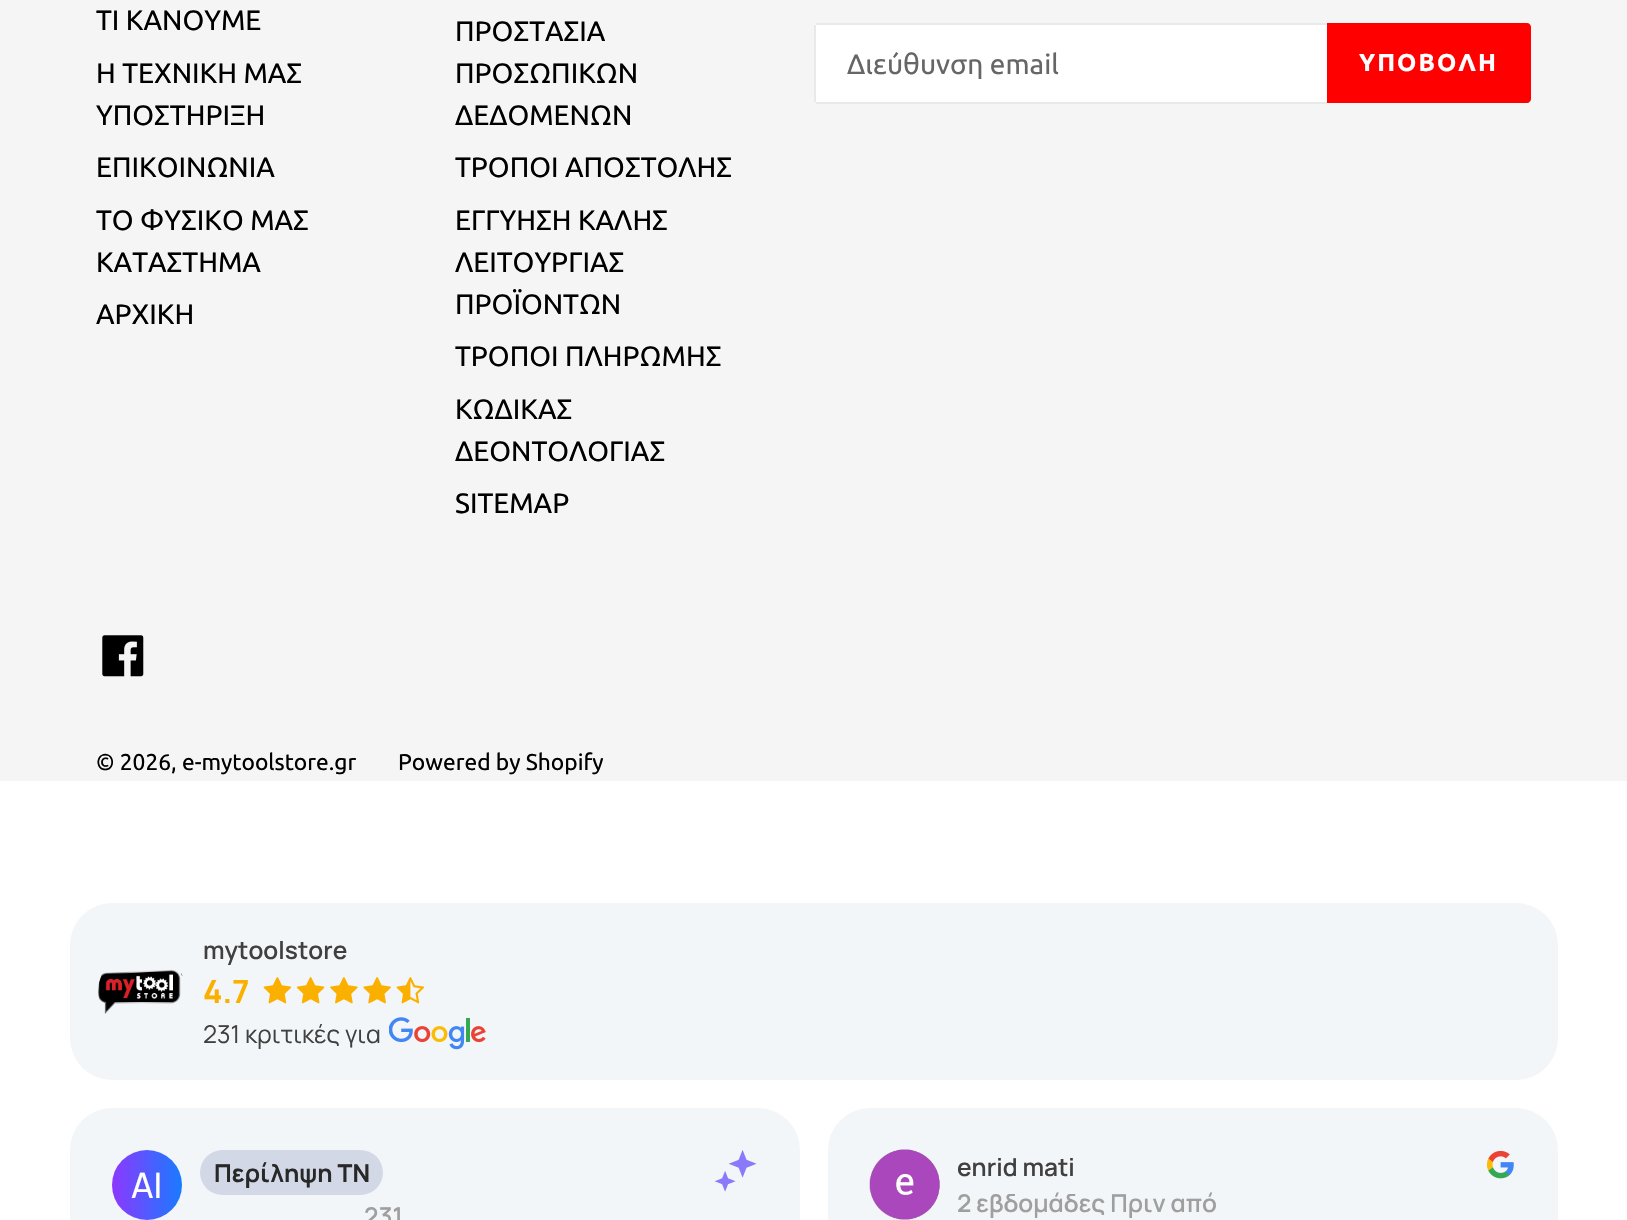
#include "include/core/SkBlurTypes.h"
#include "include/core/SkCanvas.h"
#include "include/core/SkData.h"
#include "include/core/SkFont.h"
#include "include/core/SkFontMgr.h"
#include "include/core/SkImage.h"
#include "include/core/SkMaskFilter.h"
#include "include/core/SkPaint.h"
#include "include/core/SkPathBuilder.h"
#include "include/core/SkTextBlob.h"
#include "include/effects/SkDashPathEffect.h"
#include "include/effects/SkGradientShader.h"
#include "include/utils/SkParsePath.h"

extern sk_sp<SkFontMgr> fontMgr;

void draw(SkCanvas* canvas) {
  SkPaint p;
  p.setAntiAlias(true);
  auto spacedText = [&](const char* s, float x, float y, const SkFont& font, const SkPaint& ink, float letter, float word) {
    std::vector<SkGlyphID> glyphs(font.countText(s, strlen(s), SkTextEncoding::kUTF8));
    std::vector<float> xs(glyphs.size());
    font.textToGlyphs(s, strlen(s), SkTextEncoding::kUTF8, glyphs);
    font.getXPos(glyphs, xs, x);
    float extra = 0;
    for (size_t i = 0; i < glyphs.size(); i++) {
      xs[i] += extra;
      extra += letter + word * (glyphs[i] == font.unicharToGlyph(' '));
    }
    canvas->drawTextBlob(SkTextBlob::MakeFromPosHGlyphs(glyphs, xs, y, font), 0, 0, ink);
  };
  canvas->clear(SK_ColorWHITE);
  p.setColor(SkColorSetRGB(245, 245, 245));
  canvas->drawRect(SkRect::MakeLTRB(0, 0, 1627, 781), p);
  p.setColor(SK_ColorWHITE);
  canvas->drawPath(SkPathBuilder().moveTo(818, 23).lineTo(1327, 23).lineTo(1327, 103).lineTo(818, 103).cubicTo(816, 103, 814, 101, 814, 99).lineTo(814, 27).cubicTo(814, 25, 816, 23, 818, 23).close().detach(), p);
  p.setColor(SkColorSetRGB(232, 233, 235));
  canvas->drawRect(SkRect::MakeLTRB(816, 23, 1327, 25), p);
  canvas->drawRect(SkRect::MakeLTRB(816, 102, 1327, 104), p);
  canvas->drawRect(SkRect::MakeLTRB(814, 25, 816, 102), p);
  p.setColor(SkColorSetRGB(255, 0, 0));
  canvas->drawPath(SkPathBuilder().moveTo(1327, 23).lineTo(1527, 23).cubicTo(1529, 23, 1531, 25, 1531, 27).lineTo(1531, 99).cubicTo(1531, 101, 1529, 103, 1527, 103).lineTo(1327, 103).close().detach(), p);
  canvas->drawImageRect(SkImages::DeferredFromEncodedData(SkData::MakeFromFileName("images/1.png")), SkRect::MakeLTRB(102, 635, 144, 677), SkSamplingOptions());
  p.setColor(SkColorSetRGB(243, 246, 249));
  canvas->drawRoundRect(SkRect::MakeLTRB(70, 903, 1558, 1080), 42, 42, p);
  canvas->drawImageRect(SkImages::DeferredFromEncodedData(SkData::MakeFromFileName("images/2.png")), SkRect::MakeLTRB(98, 970, 183, 1014), SkSamplingOptions());
  canvas->drawImageRect(SkImages::DeferredFromEncodedData(SkData::MakeFromFileName("images/3.png")), SkRect::MakeLTRB(263, 977, 292, 1004), SkSamplingOptions());
  canvas->drawImageRect(SkImages::DeferredFromEncodedData(SkData::MakeFromFileName("images/4.png")), SkRect::MakeLTRB(296, 977, 325, 1004), SkSamplingOptions());
  canvas->drawImageRect(SkImages::DeferredFromEncodedData(SkData::MakeFromFileName("images/5.png")), SkRect::MakeLTRB(330, 977, 358, 1004), SkSamplingOptions());
  canvas->drawImageRect(SkImages::DeferredFromEncodedData(SkData::MakeFromFileName("images/6.png")), SkRect::MakeLTRB(363, 977, 391, 1004), SkSamplingOptions());
  canvas->drawImageRect(SkImages::DeferredFromEncodedData(SkData::MakeFromFileName("images/7.png")), SkRect::MakeLTRB(396, 977, 425, 1004), SkSamplingOptions());
  canvas->drawImageRect(SkImages::DeferredFromEncodedData(SkData::MakeFromFileName("images/8.png")), SkRect::MakeLTRB(389, 1017, 486, 1050), SkSamplingOptions());
  canvas->drawRoundRect(SkRect::MakeLTRB(70, 1108, 800, 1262), 42, 42, p);
  {
    const SkColor colors[] = {SkColorSetRGB(141, 56, 255), SkColorSetRGB(25, 123, 255)};
    const float stops[] = {0, 1};
    const SkPoint ends[] = {{112, 1185}, {182, 1185}};
    p.setShader(SkGradientShader::MakeLinear(ends, colors, stops, 2, SkTileMode::kClamp));
    p.setAlpha(255);
  }
  canvas->drawCircle(147, 1185, 35, p);
  p.setShader(nullptr);
  p.setColor(SkColorSetRGB(211, 216, 231));
  canvas->drawRoundRect(SkRect::MakeLTRB(200, 1150, 383, 1195), 22.5f, 22.5f, p);
  canvas->drawImageRect(SkImages::DeferredFromEncodedData(SkData::MakeFromFileName("images/9.png")), SkRect::MakeLTRB(715, 1150, 757, 1192), SkSamplingOptions());
  p.setColor(SkColorSetRGB(243, 246, 249));
  canvas->drawRoundRect(SkRect::MakeLTRB(828, 1108, 1558, 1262), 42, 42, p);
  canvas->drawImageRect(SkImages::DeferredFromEncodedData(SkData::MakeFromFileName("images/10.png")), SkRect::MakeLTRB(869, 1149, 940, 1220), SkSamplingOptions());
  canvas->drawImageRect(SkImages::DeferredFromEncodedData(SkData::MakeFromFileName("images/11.png")), SkRect::MakeLTRB(1486, 1150, 1514, 1179), SkSamplingOptions());
  SkFont font1(fontMgr->matchFamilyStyle("Ubuntu", SkFontStyle::Normal()), 28);
  font1.setSubpixel(true);
  p.setColor(SK_ColorBLACK);
  canvas->drawString("ΤΙ ΚΑΝΟΥΜΕ", 96, 30, font1, p);
  canvas->drawString("Η ΤΕΧΝΙΚΗ ΜΑΣ", 96, 83, font1, p);
  canvas->drawString("ΥΠΟΣΤΗΡΙΞΗ", 96, 125, font1, p);
  canvas->drawString("ΕΠΙΚΟΙΝΩΝΙΑ", 96, 177, font1, p);
  canvas->drawString("ΤΟ ΦΥΣΙΚΟ ΜΑΣ", 96, 230, font1, p);
  canvas->drawString("ΚΑΤΑΣΤΗΜΑ", 96, 272, font1, p);
  canvas->drawString("ΑΡΧΙΚΗ", 96, 324, font1, p);
  canvas->drawString("ΠΡΟΣΤΑΣΙΑ", 455, 41, font1, p);
  canvas->drawString("ΠΡΟΣΩΠΙΚΩΝ", 455, 83, font1, p);
  canvas->drawString("ΔΕΔΟΜΕΝΩΝ", 455, 125, font1, p);
  canvas->drawString("ΤΡΟΠΟΙ ΑΠΟΣΤΟΛΗΣ", 455, 177, font1, p);
  canvas->drawString("ΕΓΓΥΗΣΗ ΚΑΛΗΣ", 455, 230, font1, p);
  canvas->drawString("ΛΕΙΤΟΥΡΓΙΑΣ", 455, 272, font1, p);
  canvas->drawString("ΠΡΟΪΟΝΤΩΝ", 455, 314, font1, p);
  canvas->drawString("ΤΡΟΠΟΙ ΠΛΗΡΩΜΗΣ", 455, 366, font1, p);
  canvas->drawString("ΚΩΔΙΚΑΣ", 455, 419, font1, p);
  canvas->drawString("ΔΕΟΝΤΟΛΟΓΙΑΣ", 455, 461, font1, p);
  canvas->drawString("SITEMAP", 455, 513, font1, p);
  canvas->save();
  canvas->clipRect(SkRect::MakeLTRB(847, 47, 1295, 79));
  p.setColor(SkColorSetRGB(102, 102, 102));
  canvas->drawString("Διεύθυνση email", 847, 74, font1, p);
  canvas->restore();
  SkFont font2(fontMgr->matchFamilyStyle("Ubuntu", SkFontStyle::Bold()), 24.5f);
  font2.setSubpixel(true);
  p.setColor(SK_ColorWHITE);
  spacedText("ΥΠΟΒΟΛΗ", 1359, 71, font2, p, 2, 0);
  SkFont font3(fontMgr->matchFamilyStyle("Ubuntu", SkFontStyle::Normal()), 22.75f);
  font3.setSubpixel(true);
  p.setColor(SK_ColorBLACK);
  canvas->drawString("© 2026, e-mytoolstore.gr", 96, 770, font3, p);
  canvas->drawString("Powered by Shopify", 398, 770, font3, p);
  SkFont font4(fontMgr->matchFamilyStyle("Manrope", SkFontStyle(600, SkFontStyle::kNormal_Width, SkFontStyle::kUpright_Slant)), 24.5f);
  font4.setSubpixel(true);
  p.setColor(SkColorSetRGB(64, 64, 64));
  canvas->drawString("mytoolstore", 203, 959, font4, p);
  SkFont font5(fontMgr->matchFamilyStyle("Manrope", SkFontStyle::Bold()), 32);
  font5.setSubpixel(true);
  p.setColor(SkColorSetRGB(251, 176, 0));
  canvas->drawString("4.7", 203, 1003, font5, p);
  SkFont font6(fontMgr->matchFamilyStyle("Manrope", SkFontStyle::Normal()), 24.5f);
  font6.setSubpixel(true);
  p.setColor(SkColorSetRGB(64, 64, 64));
  canvas->drawString("231 κριτικές για", 203, 1043, font6, p);
  SkFont font7(fontMgr->matchFamilyStyle("Manrope", SkFontStyle(500, SkFontStyle::kNormal_Width, SkFontStyle::kUpright_Slant)), 35);
  font7.setSubpixel(true);
  p.setColor(SK_ColorWHITE);
  canvas->drawString("AI", 131, 1198, font7, p);
  SkFont font8(fontMgr->matchFamilyStyle("Manrope", SkFontStyle::Bold()), 24.5f);
  font8.setSubpixel(true);
  p.setColor(SkColorSetRGB(40, 40, 40));
  canvas->drawString("Περίληψη ΤΝ", 214, 1182, font8, p);
  p.setColor(SkColorSetRGB(159, 159, 159));
  canvas->drawString("231", 364, 1225, font4, p);
  p.setColor(SkColorSetRGB(64, 64, 64));
  canvas->drawString("enrid mati", 957, 1176, font4, p);
  p.setColor(SkColorSetRGB(159, 159, 159));
  canvas->drawString("2 εβδομάδες Πριν από", 957, 1212, font4, p);
}
